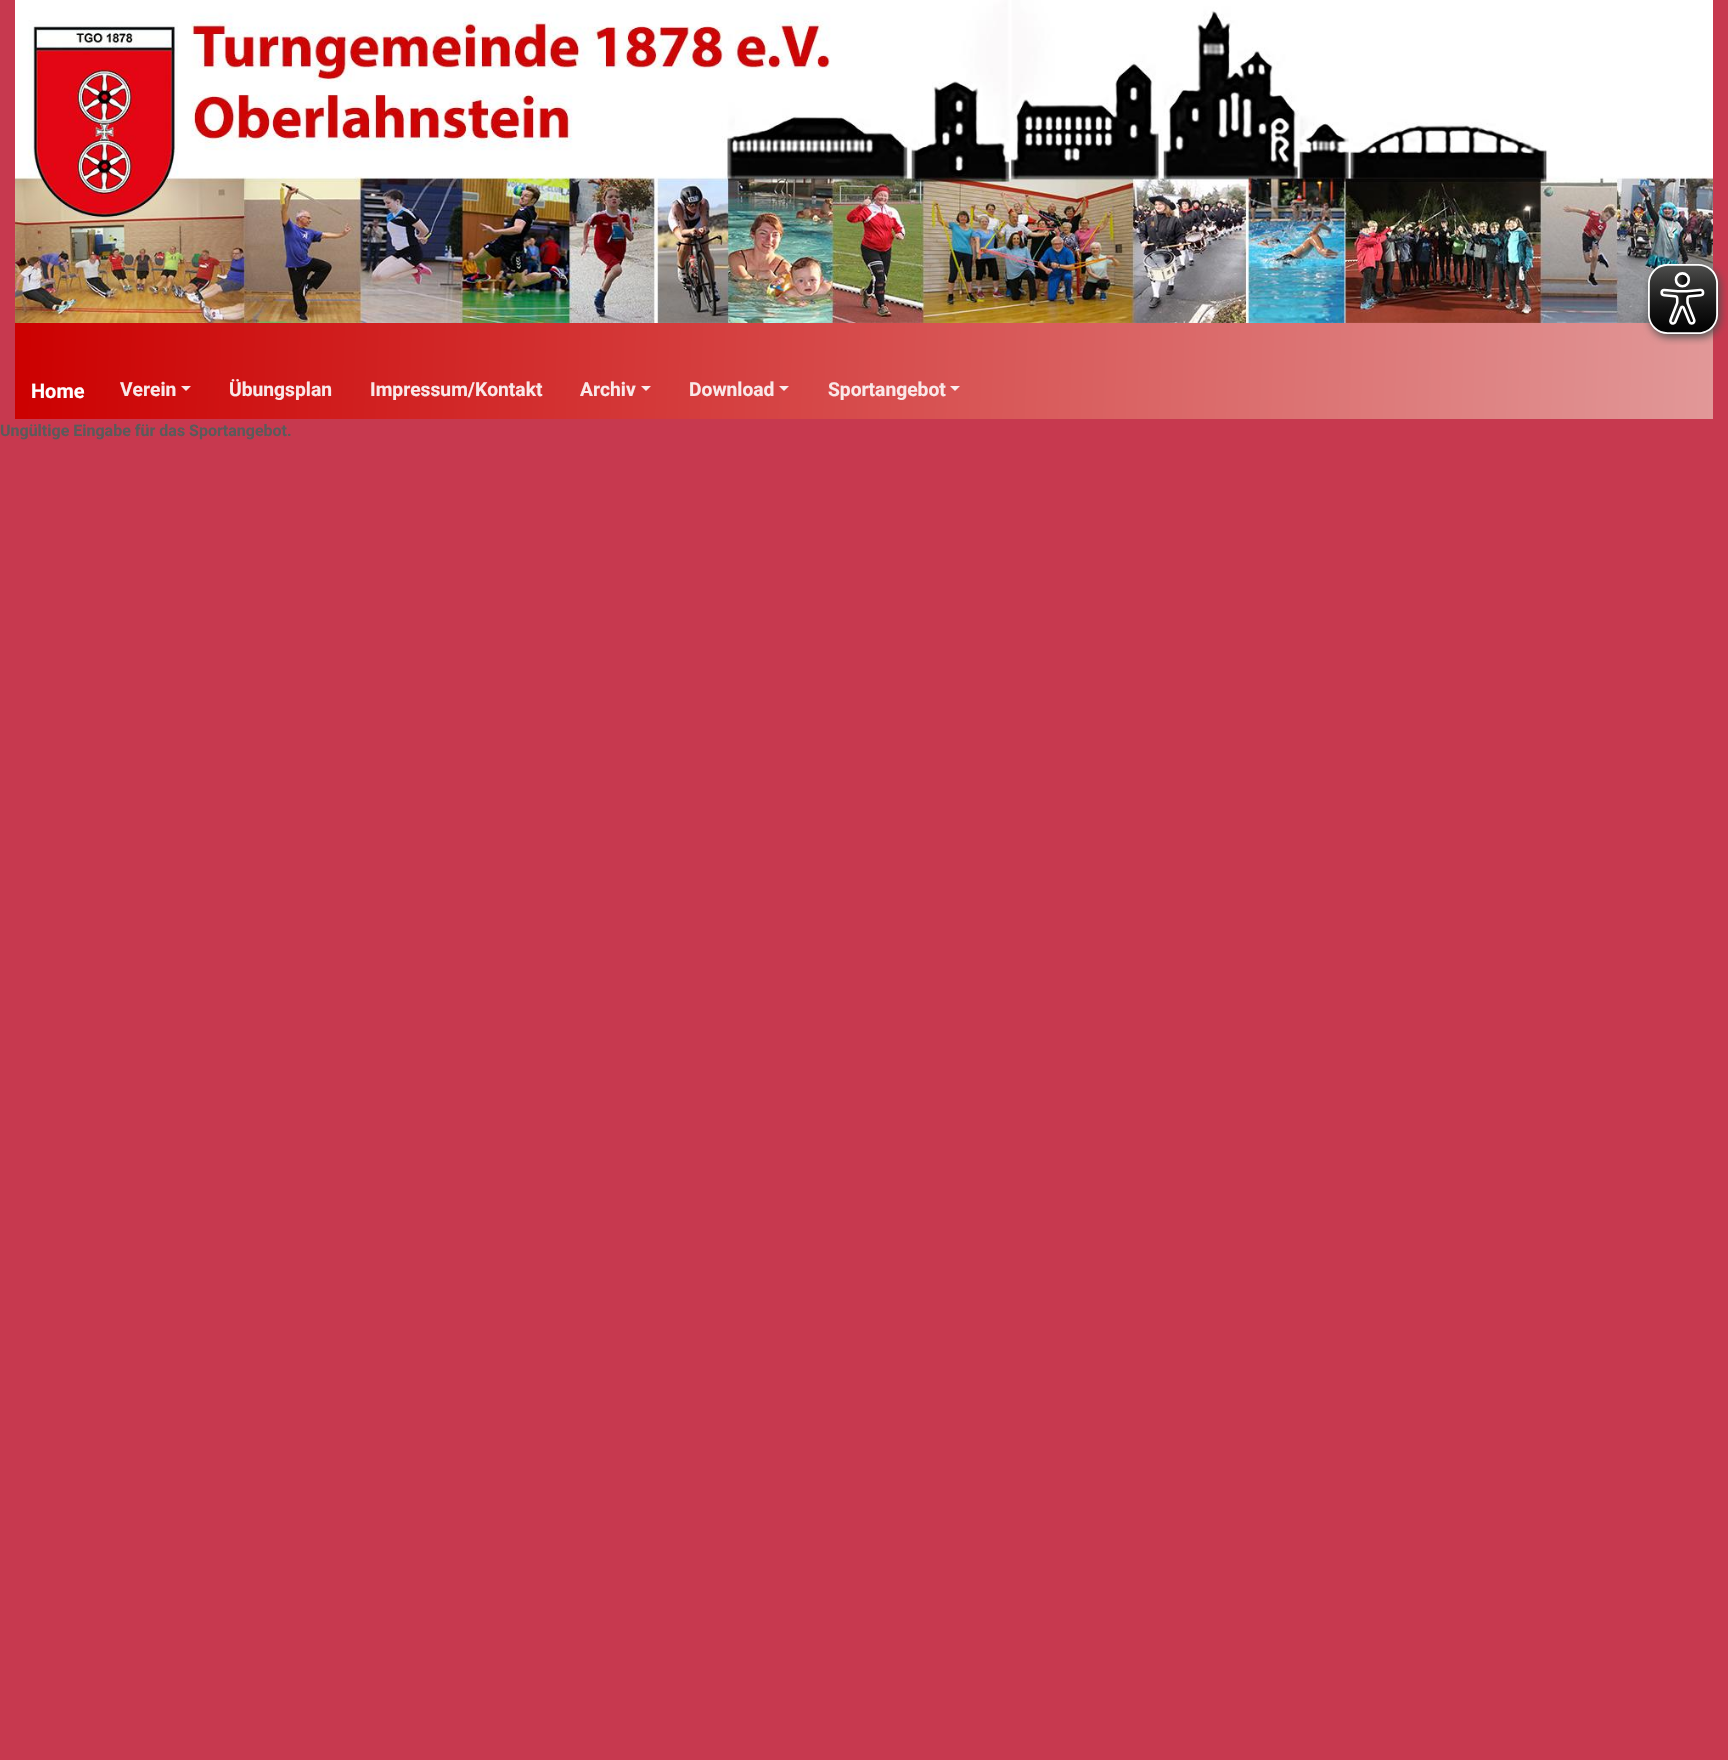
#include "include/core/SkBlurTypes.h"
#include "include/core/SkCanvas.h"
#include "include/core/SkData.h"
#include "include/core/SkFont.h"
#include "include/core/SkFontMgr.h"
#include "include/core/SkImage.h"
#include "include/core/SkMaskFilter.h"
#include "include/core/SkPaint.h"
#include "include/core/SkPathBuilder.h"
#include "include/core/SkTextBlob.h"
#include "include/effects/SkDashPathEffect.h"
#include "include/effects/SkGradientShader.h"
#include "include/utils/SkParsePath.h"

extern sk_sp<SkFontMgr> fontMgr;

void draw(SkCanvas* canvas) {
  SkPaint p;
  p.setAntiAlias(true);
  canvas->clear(SkColorSetRGB(199, 57, 79));
  canvas->drawImageRect(SkImages::DeferredFromEncodedData(SkData::MakeFromFileName("images/2.png")), SkRect::MakeLTRB(15, 0, 1713, 323), SkSamplingOptions());
  {
    const SkColor colors[] = {SkColorSetRGB(225, 152, 152), SkColorSetRGB(204, 0, 0)};
    const float stops[] = {0, 1};
    const SkPoint ends[] = {{1714, 401}, {14, 341}};
    p.setShader(SkGradientShader::MakeLinear(ends, colors, stops, 2, SkTileMode::kClamp));
    p.setAlpha(255);
  }
  canvas->drawRect(SkRect::MakeLTRB(15, 323, 1713, 419), p);
  canvas->drawImageRect(SkImages::DeferredFromEncodedData(SkData::MakeFromFileName("images/1.png")), SkRect::MakeLTRB(1643, 260, 1728, 345), SkSamplingOptions());
  p.setShader(nullptr);
  p.setColor(SkColorSetRGB(250, 231, 231));
  canvas->drawPath(SkPathBuilder().moveTo(181, 386).lineTo(191, 386).lineTo(186, 391).close().detach(), p);
  p.setColor(SkColorSetRGB(251, 235, 235));
  canvas->drawPath(SkPathBuilder().moveTo(641, 386).lineTo(651, 386).lineTo(646, 391).close().detach(), p);
  p.setColor(SkColorSetRGB(251, 236, 236));
  canvas->drawPath(SkPathBuilder().moveTo(779, 386).lineTo(789, 386).lineTo(784, 391).close().detach(), p);
  p.setColor(SkColorSetRGB(251, 238, 238));
  canvas->drawPath(SkPathBuilder().moveTo(950, 386).lineTo(960, 386).lineTo(955, 391).close().detach(), p);
  SkFont font1(fontMgr->matchFamilyStyle("Roboto", SkFontStyle::Bold()), 20);
  font1.setSubpixel(true);
  p.setColor(SK_ColorWHITE);
  canvas->drawString("Home", 31, 398, font1, p);
  SkFont font2(fontMgr->matchFamilyStyle("Roboto", SkFontStyle::Bold()), 19.25f);
  font2.setSubpixel(true);
  p.setColor(SkColorSetRGB(250, 232, 232));
  canvas->drawString("Verein", 120, 396, font2, p);
  canvas->drawString("Übungsplan", 229, 396, font2, p);
  canvas->drawString("Impressum/Kontakt", 370, 396, font2, p);
  canvas->drawString("Archiv", 580, 396, font2, p);
  canvas->drawString("Download", 689, 396, font2, p);
  canvas->drawString("Sportangebot", 828, 396, font2, p);
  SkFont font3(fontMgr->matchFamilyStyle("Roboto", SkFontStyle::Bold()), 16);
  font3.setSubpixel(true);
  p.setColor(SkColorSetRGB(90, 90, 90));
  canvas->drawString("Ungültige Eingabe für das Sportangebot.", 0, 436, font3, p);
}
